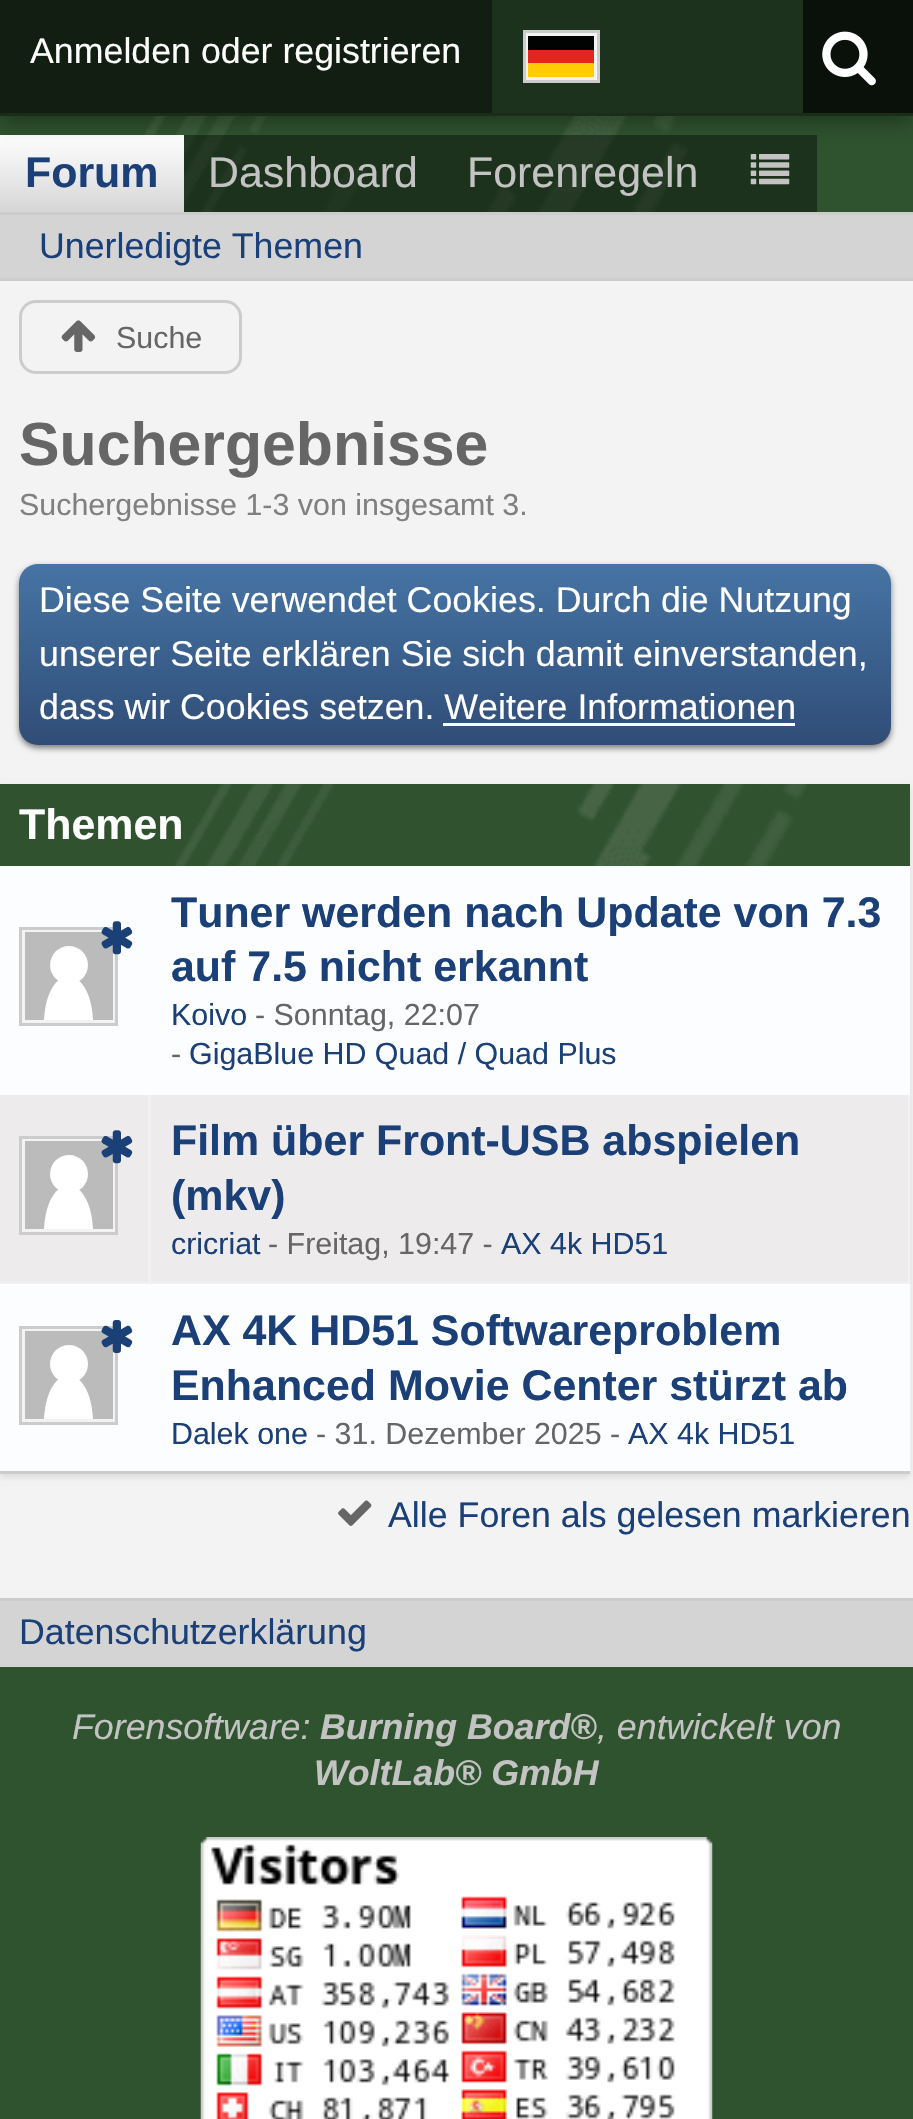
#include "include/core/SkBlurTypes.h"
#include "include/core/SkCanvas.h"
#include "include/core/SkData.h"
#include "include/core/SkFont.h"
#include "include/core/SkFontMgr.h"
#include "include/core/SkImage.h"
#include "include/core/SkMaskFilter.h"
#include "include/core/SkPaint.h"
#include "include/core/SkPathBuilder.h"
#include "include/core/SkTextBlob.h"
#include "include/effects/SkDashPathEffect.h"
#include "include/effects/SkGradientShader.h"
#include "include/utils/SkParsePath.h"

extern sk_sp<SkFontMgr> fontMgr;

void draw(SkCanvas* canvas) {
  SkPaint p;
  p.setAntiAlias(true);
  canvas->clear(SkColorSetRGB(47, 83, 46));
  canvas->drawImageRect(SkImages::DeferredFromEncodedData(SkData::MakeFromFileName("images/1.png")), SkRect::MakeLTRB(144, 116, 688, 212), SkSamplingOptions());
  p.setColor(SkColorSetARGB(102, 0, 0, 0));
  canvas->drawRect(SkRect::MakeLTRB(184, 135, 817, 212), p);
  {
    const SkColor colors[] = {SK_ColorWHITE, SkColorSetRGB(212, 212, 212)};
    const float stops[] = {0, 1};
    const SkPoint ends[] = {{92, 135}, {92, 215}};
    p.setShader(SkGradientShader::MakeLinear(ends, colors, stops, 2, SkTileMode::kClamp));
    p.setAlpha(255);
  }
  canvas->drawRect(SkRect::MakeLTRB(0, 135, 184, 212), p);
  p.setShader(nullptr);
  p.setColor(SkColorSetARGB(77, 0, 0, 0));
  p.setMaskFilter(SkMaskFilter::MakeBlur(kNormal_SkBlurStyle, 9.5f));
  canvas->drawRect(SkRect::MakeLTRB(0, 8, 913, 124), p);
  p.setMaskFilter(nullptr);
  p.setColor(SkColorSetRGB(28, 50, 28));
  canvas->drawRect(SkRect::MakeLTRB(492, 0, 803, 113), p);
  p.setColor(SkColorSetRGB(25, 45, 25));
  canvas->drawRect(SkRect::MakeLTRB(0, 113, 913, 116), p);
  p.setColor(SkColorSetRGB(17, 30, 17));
  canvas->drawRect(SkRect::MakeLTRB(0, 0, 492, 113), p);
  p.setColor(SkColorSetRGB(243, 243, 243));
  canvas->drawRect(SkRect::MakeLTRB(524.5f, 31.5f, 598.5f, 81.5f), p);
  p.setStyle(SkPaint::kStroke_Style);
  p.setStrokeWidth(3);
  p.setColor(SkColorSetRGB(204, 204, 204));
  canvas->drawRect(SkRect::MakeLTRB(524.5f, 31.5f, 598.5f, 81.5f), p);
  p.setStyle(SkPaint::kFill_Style);
  p.setColor(SkColorSetRGB(1, 2, 2));
  canvas->drawRect(SkRect::MakeLTRB(528, 36, 594, 50), p);
  p.setColor(SkColorSetRGB(229, 36, 32));
  canvas->drawRect(SkRect::MakeLTRB(528, 50, 594, 63), p);
  p.setColor(SkColorSetRGB(255, 204, 4));
  canvas->drawRect(SkRect::MakeLTRB(528, 63, 594, 77), p);
  p.setColor(SkColorSetRGB(10, 17, 10));
  canvas->drawRect(SkRect::MakeLTRB(803, 0, 913, 113), p);
  canvas->drawImageRect(SkImages::DeferredFromEncodedData(SkData::MakeFromFileName("images/2.png")), SkRect::MakeLTRB(822, 31, 876, 86), SkSamplingOptions());
  canvas->drawImageRect(SkImages::DeferredFromEncodedData(SkData::MakeFromFileName("images/3.png")), SkRect::MakeLTRB(750, 154, 790, 185), SkSamplingOptions());
  p.setColor(SkColorSetRGB(212, 212, 212));
  canvas->drawRect(SkRect::MakeLTRB(0, 215, 913, 278), p);
  p.setColor(SkColorSetRGB(204, 204, 204));
  canvas->drawRect(SkRect::MakeLTRB(0, 212, 913, 215), p);
  canvas->drawRect(SkRect::MakeLTRB(0, 278, 913, 281), p);
  p.setColor(SkColorSetRGB(243, 243, 243));
  canvas->drawRect(SkRect::MakeLTRB(0, 281, 913, 1598), p);
  p.setStyle(SkPaint::kStroke_Style);
  p.setColor(SkColorSetRGB(204, 204, 204));
  canvas->drawRoundRect(SkRect::MakeLTRB(20.5f, 301.5f, 240.5f, 372.5f), 15.5f, 15.5f, p);
  canvas->drawImageRect(SkImages::DeferredFromEncodedData(SkData::MakeFromFileName("images/4.png")), SkRect::MakeLTRB(61, 320, 96, 352), SkSamplingOptions());
  p.setStyle(SkPaint::kFill_Style);
  p.setColor(SkColorSetARGB(128, 0, 0, 0));
  p.setMaskFilter(SkMaskFilter::MakeBlur(kNormal_SkBlurStyle, 3));
  canvas->drawRoundRect(SkRect::MakeLTRB(19, 567, 891, 748), 19, 19, p);
  p.setMaskFilter(nullptr);
  {
    const SkColor colors[] = {SkColorSetRGB(70, 116, 164), SkColorSetRGB(48, 77, 119)};
    const float stops[] = {0, 1};
    const SkPoint ends[] = {{455, 564}, {455, 745}};
    p.setShader(SkGradientShader::MakeLinear(ends, colors, stops, 2, SkTileMode::kClamp));
    p.setAlpha(255);
  }
  canvas->drawRoundRect(SkRect::MakeLTRB(19, 564, 891, 745), 19, 19, p);
  p.setShader(nullptr);
  p.setColor(SK_ColorWHITE);
  canvas->drawRect(SkRect::MakeLTRB(443, 723, 795, 726), p);
  p.setColor(SkColorSetARGB(26, 0, 0, 0));
  p.setMaskFilter(SkMaskFilter::MakeBlur(kNormal_SkBlurStyle, 3));
  canvas->drawRect(SkRect::MakeLTRB(0, 787, 910, 1477), p);
  p.setMaskFilter(nullptr);
  p.setColor(SkColorSetRGB(48, 82, 46));
  canvas->drawRect(SkRect::MakeLTRB(0, 784, 910, 866), p);
  canvas->drawImageRect(SkImages::DeferredFromEncodedData(SkData::MakeFromFileName("images/5.png")), SkRect::MakeLTRB(175, 784, 807, 866), SkSamplingOptions());
  p.setColor(SkColorSetRGB(204, 204, 204));
  canvas->drawRect(SkRect::MakeLTRB(0, 1471, 910, 1474), p);
  p.setColor(SkColorSetRGB(252, 253, 254));
  canvas->drawRect(SkRect::MakeLTRB(0, 866, 910, 1095), p);
  p.setColor(SkColorSetRGB(243, 243, 243));
  canvas->drawRect(SkRect::MakeLTRB(20.5f, 928.5f, 116.5f, 1024.5f), p);
  p.setStyle(SkPaint::kStroke_Style);
  p.setColor(SkColorSetRGB(204, 204, 204));
  canvas->drawRect(SkRect::MakeLTRB(20.5f, 928.5f, 116.5f, 1024.5f), p);
  p.setStyle(SkPaint::kFill_Style);
  p.setColor(SkColorSetRGB(187, 187, 187));
  canvas->drawRect(SkRect::MakeLTRB(25, 932, 113, 1020), p);
  canvas->drawImageRect(SkImages::DeferredFromEncodedData(SkData::MakeFromFileName("images/6.png")), SkRect::MakeLTRB(101, 921, 133, 955), SkSamplingOptions());
  p.setColor(SK_ColorWHITE);
  canvas->drawPath(SkPathBuilder().moveTo(44, 1020).cubicTo(47, 962, 90, 962, 93, 1020).detach(), p);
  canvas->drawCircle(69, 965, 19, p);
  p.setColor(SkColorSetRGB(237, 235, 235));
  canvas->drawRect(SkRect::MakeLTRB(0, 1095, 910, 1284), p);
  p.setColor(SkColorSetARGB(77, 255, 255, 255));
  canvas->drawPath(SkPathBuilder().moveTo(151, 1094).lineTo(151, 1284).lineTo(148, 1282).lineTo(148, 1094).close().detach(), p);
  p.setColor(SkColorSetRGB(242, 241, 241));
  canvas->drawPath(SkPathBuilder().moveTo(151, 1284).lineTo(0, 1284).lineTo(0, 1282).lineTo(148, 1282).close().detach(), p);
  p.setColor(SkColorSetRGB(243, 243, 243));
  canvas->drawRect(SkRect::MakeLTRB(20.5f, 1137.5f, 116.5f, 1233.5f), p);
  p.setStyle(SkPaint::kStroke_Style);
  p.setColor(SkColorSetRGB(204, 204, 204));
  canvas->drawRect(SkRect::MakeLTRB(20.5f, 1137.5f, 116.5f, 1233.5f), p);
  p.setStyle(SkPaint::kFill_Style);
  p.setColor(SkColorSetRGB(187, 187, 187));
  canvas->drawRect(SkRect::MakeLTRB(25, 1141, 113, 1229), p);
  canvas->drawImageRect(SkImages::DeferredFromEncodedData(SkData::MakeFromFileName("images/7.png")), SkRect::MakeLTRB(101, 1130, 133, 1164), SkSamplingOptions());
  p.setColor(SK_ColorWHITE);
  canvas->drawPath(SkPathBuilder().moveTo(44, 1229).cubicTo(47, 1171, 90, 1171, 93, 1229).detach(), p);
  canvas->drawCircle(69, 1174, 19, p);
  p.setColor(SkColorSetARGB(77, 255, 255, 255));
  canvas->drawPath(SkPathBuilder().moveTo(910, 1094).lineTo(910, 1284).lineTo(908, 1282).lineTo(908, 1094).close().detach(), p);
  canvas->drawPath(SkPathBuilder().moveTo(910, 1284).lineTo(151, 1284).lineTo(151, 1282).lineTo(908, 1282).close().detach(), p);
  p.setColor(SkColorSetRGB(252, 253, 254));
  canvas->drawRect(SkRect::MakeLTRB(0, 1284, 149, 1471), p);
  p.setColor(SkColorSetRGB(253, 254, 254));
  canvas->drawRect(SkRect::MakeLTRB(149, 1284, 151, 1471), p);
  p.setColor(SkColorSetRGB(243, 243, 243));
  canvas->drawRect(SkRect::MakeLTRB(20.5f, 1327.5f, 116.5f, 1423.5f), p);
  p.setStyle(SkPaint::kStroke_Style);
  p.setColor(SkColorSetRGB(204, 204, 204));
  canvas->drawRect(SkRect::MakeLTRB(20.5f, 1327.5f, 116.5f, 1423.5f), p);
  p.setStyle(SkPaint::kFill_Style);
  p.setColor(SkColorSetRGB(187, 187, 187));
  canvas->drawRect(SkRect::MakeLTRB(25, 1331, 113, 1419), p);
  canvas->drawImageRect(SkImages::DeferredFromEncodedData(SkData::MakeFromFileName("images/8.png")), SkRect::MakeLTRB(101, 1320, 133, 1353), SkSamplingOptions());
  p.setColor(SK_ColorWHITE);
  canvas->drawPath(SkPathBuilder().moveTo(44, 1419).cubicTo(47, 1361, 90, 1361, 93, 1419).detach(), p);
  canvas->drawCircle(69, 1364, 19, p);
  p.setColor(SkColorSetRGB(252, 253, 254));
  canvas->drawRect(SkRect::MakeLTRB(151, 1284, 910, 1471), p);
  p.setColor(SkColorSetARGB(77, 255, 255, 255));
  canvas->drawRect(SkRect::MakeLTRB(910, 1284, 911, 1471), p);
  canvas->drawImageRect(SkImages::DeferredFromEncodedData(SkData::MakeFromFileName("images/9.png")), SkRect::MakeLTRB(338, 1500, 372, 1526), SkSamplingOptions());
  p.setColor(SkColorSetRGB(212, 212, 212));
  canvas->drawRect(SkRect::MakeLTRB(0, 1601, 913, 1667), p);
  p.setColor(SkColorSetRGB(204, 204, 204));
  canvas->drawRect(SkRect::MakeLTRB(0, 1598, 913, 1601), p);
  canvas->drawImageRect(SkImages::DeferredFromEncodedData(SkData::MakeFromFileName("images/10.png")), SkRect::MakeLTRB(200, 1837, 713, 2119), SkSamplingOptions());
  SkFont font1(fontMgr->matchFamilyStyle("Liberation Sans", SkFontStyle::Normal()), 35.75f);
  font1.setSubpixel(true);
  p.setColor(SK_ColorWHITE);
  canvas->drawString("Anmelden oder registrieren", 30, 63, font1, p);
  SkFont font2(fontMgr->matchFamilyStyle("Liberation Sans", SkFontStyle::Bold()), 42.9f);
  font2.setSubpixel(true);
  p.setColor(SkColorSetRGB(27, 64, 120));
  canvas->drawString("Forum", 25, 187, font2, p);
  SkFont font3(fontMgr->matchFamilyStyle("Liberation Sans", SkFontStyle::Normal()), 42.9f);
  font3.setSubpixel(true);
  p.setColor(SkColorSetRGB(195, 195, 195));
  canvas->drawString("Dashboard", 208, 187, font3, p);
  canvas->drawString("Forenregeln", 467, 187, font3, p);
  p.setColor(SkColorSetRGB(27, 64, 120));
  canvas->drawString("Unerledigte Themen", 39, 258, font1, p);
  SkFont font4(fontMgr->matchFamilyStyle("Liberation Sans", SkFontStyle::Normal()), 30.4f);
  font4.setSubpixel(true);
  p.setColor(SkColorSetRGB(102, 102, 102));
  canvas->drawString("Suche", 116, 348, font4, p);
  SkFont font5(fontMgr->matchFamilyStyle("Liberation Sans", SkFontStyle::Bold()), 60.75f);
  font5.setSubpixel(true);
  canvas->drawString("Suchergebnisse", 19, 465, font5, p);
  p.setColor(SkColorSetRGB(128, 128, 128));
  canvas->drawString("Suchergebnisse 1-3 von insgesamt 3.", 19, 515, font4, p);
  p.setColor(SK_ColorWHITE);
  canvas->drawString("Diese Seite verwendet Cookies. Durch die Nutzung", 39, 612, font1, p);
  canvas->drawString("unserer Seite erklären Sie sich damit einverstanden,", 39, 666, font1, p);
  canvas->drawString("dass wir Cookies setzen. Weitere Informationen", 39, 719, font1, p);
  canvas->drawString("Themen", 19, 839, font2, p);
  p.setColor(SkColorSetRGB(27, 64, 120));
  canvas->drawString("Tuner werden nach Update von 7.3", 171, 927, font2, p);
  canvas->drawString("auf 7.5 nicht erkannt", 171, 981, font2, p);
  canvas->drawString("Koivo", 171, 1025, font4, p);
  p.setColor(SkColorSetRGB(102, 102, 102));
  canvas->drawString("- Sonntag, 22:07", 255, 1025, font4, p);
  canvas->drawString("-", 171, 1064, font4, p);
  p.setColor(SkColorSetRGB(27, 64, 120));
  canvas->drawString("GigaBlue HD Quad / Quad Plus", 189, 1064, font4, p);
  canvas->drawString("Film über Front-USB abspielen", 171, 1155, font2, p);
  canvas->drawString("(mkv)", 171, 1210, font2, p);
  canvas->drawString("cricriat", 171, 1254, font4, p);
  p.setColor(SkColorSetRGB(102, 102, 102));
  canvas->drawString("- Freitag, 19:47 -", 268, 1254, font4, p);
  p.setColor(SkColorSetRGB(27, 64, 120));
  canvas->drawString("AX 4k HD51", 501, 1254, font4, p);
  canvas->drawString("AX 4K HD51 Softwareproblem", 171, 1345, font2, p);
  canvas->drawString("Enhanced Movie Center stürzt ab", 171, 1400, font2, p);
  canvas->drawString("Dalek one", 171, 1444, font4, p);
  p.setColor(SkColorSetRGB(102, 102, 102));
  canvas->drawString("- 31. Dezember 2025 -", 316, 1444, font4, p);
  p.setColor(SkColorSetRGB(27, 64, 120));
  canvas->drawString("AX 4k HD51", 628, 1444, font4, p);
  canvas->drawString("Alle Foren als gelesen markieren", 388, 1527, font1, p);
  canvas->drawString("Datenschutzerklärung", 19, 1644, font1, p);
  SkFont font6(fontMgr->matchFamilyStyle("Liberation Sans", SkFontStyle::Italic()), 35.75f);
  font6.setSubpixel(true);
  p.setColor(SkColorSetRGB(195, 195, 195));
  canvas->drawString("Forensoftware:", 72, 1739, font6, p);
  SkFont font7(fontMgr->matchFamilyStyle("Liberation Sans", SkFontStyle::BoldItalic()), 35.75f);
  font7.setSubpixel(true);
  canvas->drawString("Burning Board®", 320, 1739, font7, p);
  canvas->drawString(", entwickelt von", 597, 1739, font6, p);
  canvas->drawString("WoltLab® GmbH", 314, 1785, font7, p);
}
